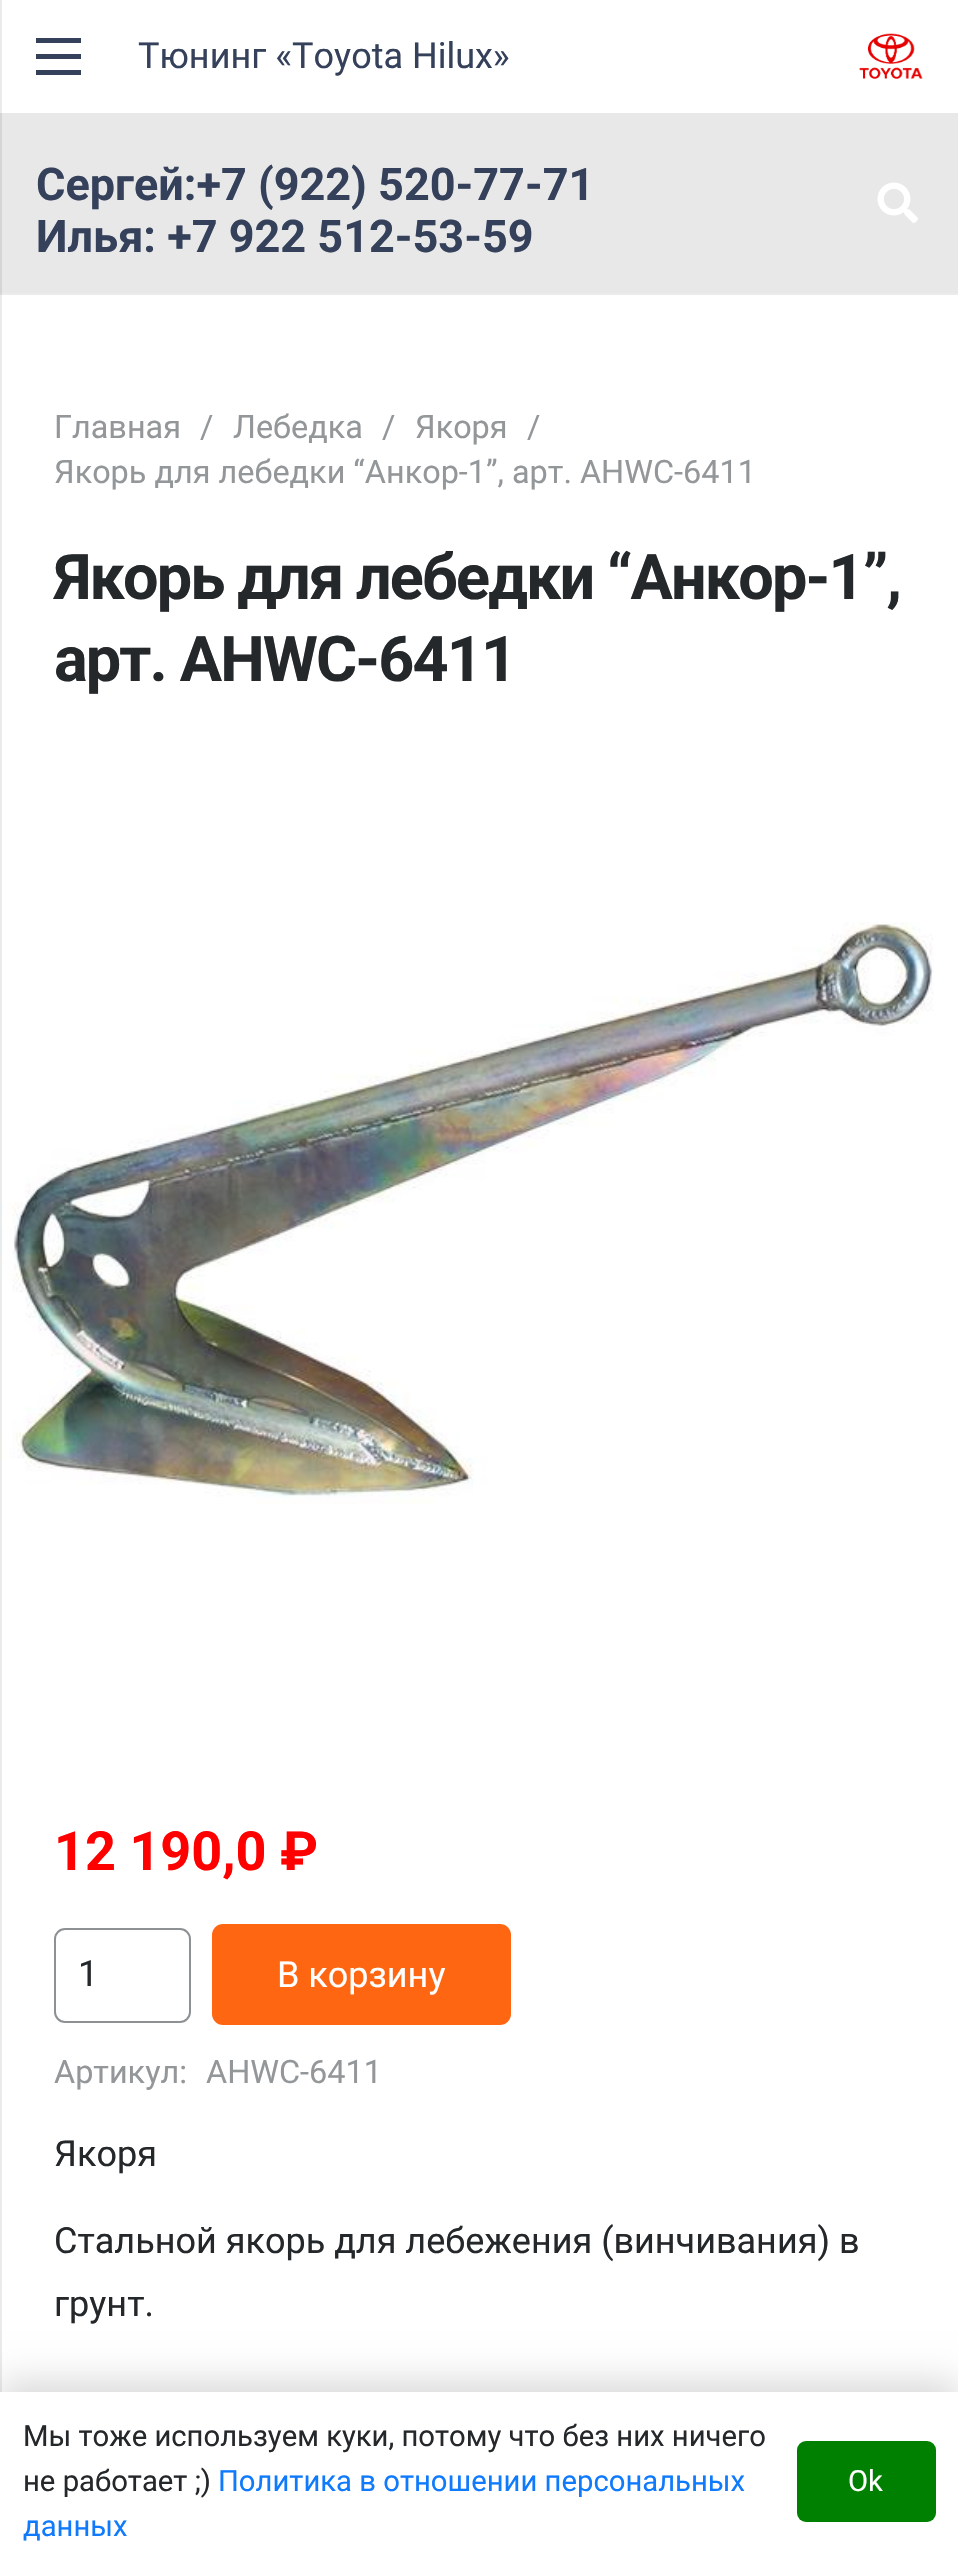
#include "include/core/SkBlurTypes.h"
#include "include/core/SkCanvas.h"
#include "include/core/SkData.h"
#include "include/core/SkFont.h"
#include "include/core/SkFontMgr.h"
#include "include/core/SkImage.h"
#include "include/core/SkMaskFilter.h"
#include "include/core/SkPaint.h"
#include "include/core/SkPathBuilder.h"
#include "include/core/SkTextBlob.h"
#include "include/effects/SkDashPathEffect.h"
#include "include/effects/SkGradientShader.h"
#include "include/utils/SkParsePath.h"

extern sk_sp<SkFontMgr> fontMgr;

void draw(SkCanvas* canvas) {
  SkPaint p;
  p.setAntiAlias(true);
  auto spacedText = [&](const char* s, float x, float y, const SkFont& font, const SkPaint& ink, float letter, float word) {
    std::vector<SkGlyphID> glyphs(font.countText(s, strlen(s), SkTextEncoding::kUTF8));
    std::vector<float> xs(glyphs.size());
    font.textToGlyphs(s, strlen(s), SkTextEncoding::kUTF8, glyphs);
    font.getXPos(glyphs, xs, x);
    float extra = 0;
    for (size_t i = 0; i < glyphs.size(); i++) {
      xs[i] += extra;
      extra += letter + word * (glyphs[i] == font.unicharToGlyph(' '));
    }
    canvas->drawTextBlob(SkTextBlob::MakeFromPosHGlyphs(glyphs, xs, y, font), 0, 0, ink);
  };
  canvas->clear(SK_ColorWHITE);
  p.setColor(SkColorSetRGB(235, 235, 235));
  canvas->drawPath(SkPathBuilder().moveTo(0, 292).lineTo(0, 295).lineTo(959, 295).lineTo(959, 115).lineTo(958, 115).lineTo(958, 292).close().detach(), p);
  p.setColor(SkColorSetRGB(232, 232, 232));
  canvas->drawRect(SkRect::MakeLTRB(0, 113, 958, 293), p);
  canvas->drawImageRect(SkImages::DeferredFromEncodedData(SkData::MakeFromFileName("images/3.png")), SkRect::MakeLTRB(0, 922, 934, 1504), SkSamplingOptions());
  p.setColor(SkColorSetARGB(20, 0, 0, 0));
  canvas->drawPath(SkPathBuilder().moveTo(-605, 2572).lineTo(2, 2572).lineTo(2, 0).lineTo(0, 0).lineTo(0, 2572).close().detach(), p);
  p.setColor(SkColorSetRGB(53, 65, 91));
  canvas->drawRect(SkRect::MakeLTRB(36, 54, 81, 59), p);
  canvas->drawRect(SkRect::MakeLTRB(36, 38, 81, 43), p);
  canvas->drawRect(SkRect::MakeLTRB(36, 70, 81, 75), p);
  canvas->drawImageRect(SkImages::DeferredFromEncodedData(SkData::MakeFromFileName("images/1.png")), SkRect::MakeLTRB(859, 33, 923, 79), SkSamplingOptions());
  canvas->drawImageRect(SkImages::DeferredFromEncodedData(SkData::MakeFromFileName("images/2.png")), SkRect::MakeLTRB(877, 182, 918, 223), SkSamplingOptions());
  p.setStyle(SkPaint::kStroke_Style);
  p.setStrokeWidth(2);
  p.setColor(SkColorSetRGB(142, 145, 148));
  canvas->drawRoundRect(SkRect::MakeLTRB(55, 1929, 190, 2022), 10, 10, p);
  p.setStyle(SkPaint::kFill_Style);
  p.setColor(SkColorSetRGB(255, 102, 17));
  canvas->drawRoundRect(SkRect::MakeLTRB(212, 1924, 511, 2025), 11, 11, p);
  p.setColor(SkColorSetARGB(38, 0, 0, 0));
  p.setMaskFilter(SkMaskFilter::MakeBlur(kNormal_SkBlurStyle, 17));
  canvas->drawRect(SkRect::MakeLTRB(0, 2381, 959, 2561), p);
  p.setMaskFilter(nullptr);
  p.setColor(SK_ColorWHITE);
  canvas->drawRect(SkRect::MakeLTRB(0, 2392, 958, 2571), p);
  p.setColor(SkColorSetRGB(0, 128, 0));
  canvas->drawRoundRect(SkRect::MakeLTRB(797, 2441, 936, 2522), 9, 9, p);
  SkFont font1(fontMgr->matchFamilyStyle("Roboto", SkFontStyle::Normal()), 36);
  font1.setSubpixel(true);
  p.setColor(SkColorSetRGB(53, 65, 91));
  canvas->drawString("Тюнинг «Toyota Hilux»", 138, 68, font1, p);
  SkFont font2(fontMgr->matchFamilyStyle("Roboto", SkFontStyle::Bold()), 45);
  font2.setSubpixel(true);
  canvas->drawString("Сергей:+7 (922) 520-77-71", 36, 200, font2, p);
  canvas->drawString("Илья: +7 922 512-53-59", 36, 252, font2, p);
  SkFont font3(fontMgr->matchFamilyStyle("Roboto", SkFontStyle::Normal()), 32.4f);
  font3.setSubpixel(true);
  p.setColor(SkColorSetRGB(148, 151, 153));
  canvas->drawString("Главная", 54, 438, font3, p);
  canvas->drawString("/", 200, 438, font3, p);
  canvas->drawString("Лебедка", 233, 438, font3, p);
  canvas->drawString("/", 382, 438, font3, p);
  canvas->drawString("Якоря", 415, 438, font3, p);
  canvas->drawString("/", 527, 438, font3, p);
  canvas->drawString("Якорь для лебедки “Анкор-1”, арт. AHWC-6411", 54, 483, font3, p);
  SkFont font4(fontMgr->matchFamilyStyle("Roboto", SkFontStyle::Bold()), 63);
  font4.setSubpixel(true);
  p.setColor(SkColorSetRGB(37, 40, 43));
  spacedText("Якорь для лебедки “Анкор-1”,", 54, 599, font4, p, -1.9f, 0);
  spacedText("арт. AHWC-6411", 54, 681, font4, p, -1.9f, 0);
  SkFont font5(fontMgr->matchFamilyStyle("Roboto", SkFontStyle::Bold()), 54);
  font5.setSubpixel(true);
  p.setColor(SkColorSetRGB(255, 0, 0));
  canvas->drawString("12 190,0 ₽", 54, 1870, font5, p);
  p.setColor(SkColorSetRGB(37, 40, 43));
  canvas->drawString("1", 78, 1986, font1, p);
  p.setColor(SK_ColorWHITE);
  canvas->drawString("В корзину", 277, 1987, font1, p);
  p.setColor(SkColorSetRGB(148, 151, 153));
  canvas->drawString("Артикул:", 54, 2083, font3, p);
  canvas->drawString("AHWC-6411", 206, 2083, font3, p);
  p.setColor(SkColorSetRGB(37, 40, 43));
  canvas->drawString("Якоря", 54, 2166, font1, p);
  canvas->drawString("Стальной якорь для лебежения (винчивания) в", 54, 2253, font1, p);
  canvas->drawString("грунт.", 54, 2316, font1, p);
  SkFont font6(fontMgr->matchFamilyStyle("Roboto", SkFontStyle::Normal()), 29.25f);
  font6.setSubpixel(true);
  canvas->drawString("Мы тоже используем куки, потому что без них ничего", 23, 2446, font6, p);
  canvas->drawString("не работает ;)", 23, 2491, font6, p);
  p.setColor(SkColorSetRGB(15, 122, 252));
  canvas->drawString("Политика в отношении персональных", 218, 2491, font6, p);
  canvas->drawString("данных", 23, 2536, font6, p);
  p.setColor(SK_ColorWHITE);
  canvas->drawString("Ok", 848, 2491, font6, p);
}
